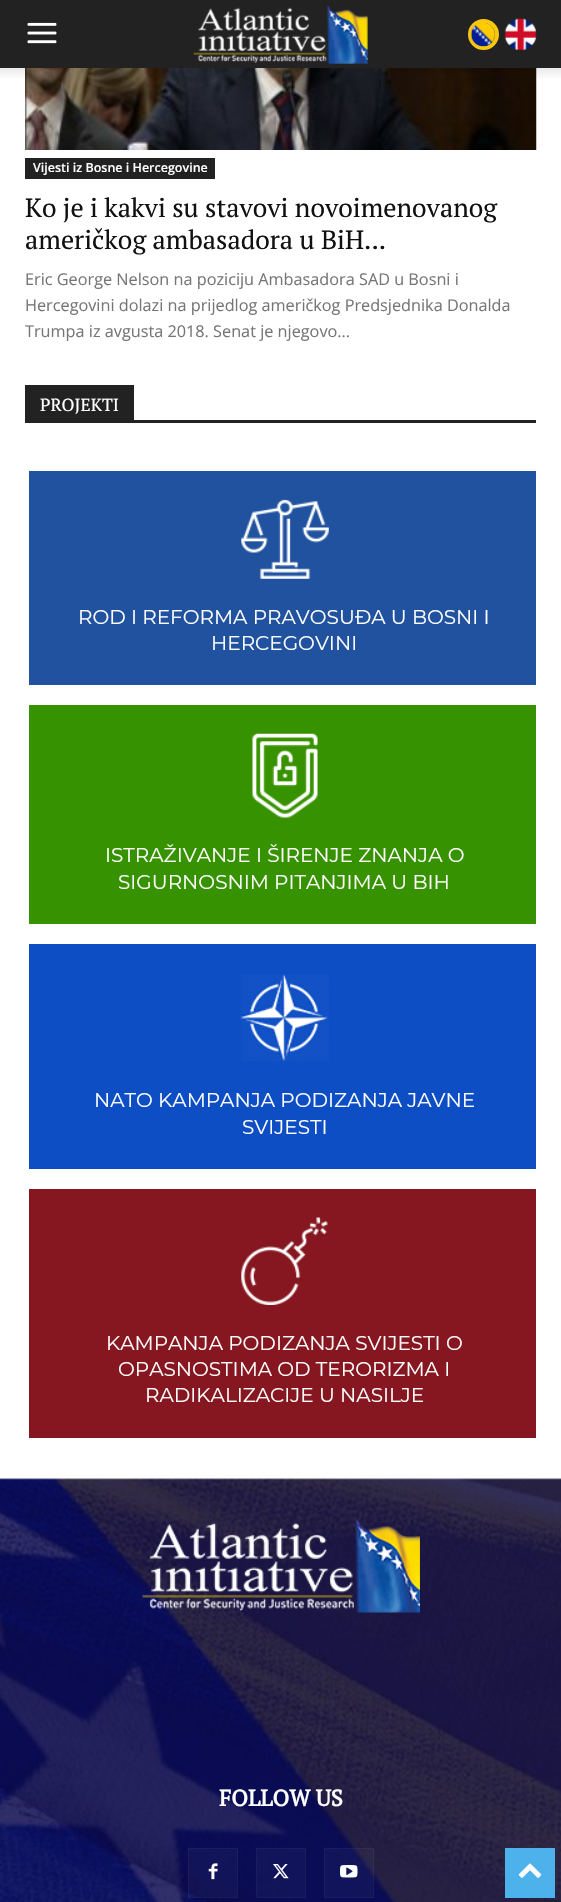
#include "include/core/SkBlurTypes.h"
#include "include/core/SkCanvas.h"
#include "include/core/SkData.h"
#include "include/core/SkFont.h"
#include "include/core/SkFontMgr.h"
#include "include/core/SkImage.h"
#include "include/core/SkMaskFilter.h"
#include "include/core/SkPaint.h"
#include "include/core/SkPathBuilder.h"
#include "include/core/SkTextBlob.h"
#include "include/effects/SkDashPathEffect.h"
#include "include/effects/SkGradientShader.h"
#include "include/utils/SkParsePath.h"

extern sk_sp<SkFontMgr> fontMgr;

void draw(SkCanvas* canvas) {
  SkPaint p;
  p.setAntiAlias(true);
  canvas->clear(SK_ColorWHITE);
  p.setColor(SkColorSetRGB(34, 34, 34));
  canvas->drawRect(SkRect::MakeLTRB(0, 0, 561, 68), p);
  canvas->drawImageRect(SkImages::DeferredFromEncodedData(SkData::MakeFromFileName("images/1.png")), SkRect::MakeLTRB(27, 22, 57, 44), SkSamplingOptions());
  canvas->drawImageRect(SkImages::DeferredFromEncodedData(SkData::MakeFromFileName("images/2.png")), SkRect::MakeLTRB(193, 5, 368, 64), SkSamplingOptions());
  p.setStyle(SkPaint::kStroke_Style);
  p.setStrokeWidth(4);
  p.setColor(SkColorSetRGB(248, 200, 17));
  canvas->drawCircle(483.5f, 34.5f, 13.5f, p);
  canvas->drawImageRect(SkImages::DeferredFromEncodedData(SkData::MakeFromFileName("images/3.png")), SkRect::MakeLTRB(470, 22, 495, 47), SkSamplingOptions());
  canvas->drawImageRect(SkImages::DeferredFromEncodedData(SkData::MakeFromFileName("images/4.png")), SkRect::MakeLTRB(504, 18, 537, 51), SkSamplingOptions());
  canvas->drawImageRect(SkImages::DeferredFromEncodedData(SkData::MakeFromFileName("images/6.png")), SkRect::MakeLTRB(25, 68, 537, 150), SkSamplingOptions());
  canvas->drawImageRect(SkImages::DeferredFromEncodedData(SkData::MakeFromFileName("images/5.png")), SkRect::MakeLTRB(0, 68, 561, 78), SkSamplingOptions());
  p.setStyle(SkPaint::kFill_Style);
  p.setColor(SkColorSetRGB(34, 34, 34));
  canvas->drawRect(SkRect::MakeLTRB(25, 158, 215, 179), p);
  canvas->drawRect(SkRect::MakeLTRB(25, 420, 536, 423), p);
  canvas->drawRect(SkRect::MakeLTRB(25, 385, 134, 420), p);
  p.setColor(SkColorSetRGB(32, 82, 159));
  canvas->drawRect(SkRect::MakeLTRB(29, 471, 536, 685), p);
  canvas->drawImageRect(SkImages::DeferredFromEncodedData(SkData::MakeFromFileName("images/7.png")), SkRect::MakeLTRB(241, 499, 329, 579), SkSamplingOptions());
  p.setColor(SkColorSetRGB(55, 146, 0));
  canvas->drawRect(SkRect::MakeLTRB(29, 705, 536, 924), p);
  canvas->drawImageRect(SkImages::DeferredFromEncodedData(SkData::MakeFromFileName("images/8.png")), SkRect::MakeLTRB(252, 733, 318, 818), SkSamplingOptions());
  p.setColor(SkColorSetRGB(13, 78, 197));
  canvas->drawRect(SkRect::MakeLTRB(29, 944, 536, 1169), p);
  canvas->drawImageRect(SkImages::DeferredFromEncodedData(SkData::MakeFromFileName("images/9.png")), SkRect::MakeLTRB(240, 974, 329, 1061), SkSamplingOptions());
  p.setColor(SkColorSetRGB(134, 23, 32));
  canvas->drawRect(SkRect::MakeLTRB(29, 1189, 536, 1438), p);
  canvas->drawImageRect(SkImages::DeferredFromEncodedData(SkData::MakeFromFileName("images/10.png")), SkRect::MakeLTRB(241, 1217, 328, 1305), SkSamplingOptions());
  canvas->drawImageRect(SkImages::DeferredFromEncodedData(SkData::MakeFromFileName("images/11.png")), SkRect::MakeLTRB(0, 1478, 561, 1902), SkSamplingOptions());
  canvas->drawImageRect(SkImages::DeferredFromEncodedData(SkData::MakeFromFileName("images/12.png")), SkRect::MakeLTRB(142, 1518, 420, 1613), SkSamplingOptions());
  p.setColor(SkColorSetARGB(8, 255, 255, 255));
  canvas->drawRect(SkRect::MakeLTRB(188, 1848, 238, 1898), p);
  canvas->drawImageRect(SkImages::DeferredFromEncodedData(SkData::MakeFromFileName("images/13.png")), SkRect::MakeLTRB(208, 1863, 218, 1880), SkSamplingOptions());
  p.setStyle(SkPaint::kStroke_Style);
  p.setStrokeWidth(1);
  canvas->drawRect(SkRect::MakeLTRB(188.5f, 1848.5f, 237.5f, 1897.5f), p);
  p.setStyle(SkPaint::kFill_Style);
  canvas->drawRect(SkRect::MakeLTRB(256, 1848, 306, 1898), p);
  canvas->drawImageRect(SkImages::DeferredFromEncodedData(SkData::MakeFromFileName("images/14.png")), SkRect::MakeLTRB(273, 1864, 289, 1879), SkSamplingOptions());
  p.setStyle(SkPaint::kStroke_Style);
  canvas->drawRect(SkRect::MakeLTRB(256.5f, 1848.5f, 305.5f, 1897.5f), p);
  p.setStyle(SkPaint::kFill_Style);
  canvas->drawRect(SkRect::MakeLTRB(324, 1848, 374, 1898), p);
  canvas->drawImageRect(SkImages::DeferredFromEncodedData(SkData::MakeFromFileName("images/15.png")), SkRect::MakeLTRB(340, 1865, 358, 1878), SkSamplingOptions());
  p.setStyle(SkPaint::kStroke_Style);
  canvas->drawRect(SkRect::MakeLTRB(324.5f, 1848.5f, 373.5f, 1897.5f), p);
  p.setStyle(SkPaint::kFill_Style);
  p.setColor(SkColorSetRGB(77, 178, 236));
  canvas->drawRect(SkRect::MakeLTRB(505, 1848, 555, 1898), p);
  canvas->drawImageRect(SkImages::DeferredFromEncodedData(SkData::MakeFromFileName("images/16.png")), SkRect::MakeLTRB(518, 1863, 542, 1878), SkSamplingOptions());
  SkFont font1(fontMgr->matchFamilyStyle("Open Sans", SkFontStyle(600, SkFontStyle::kNormal_Width, SkFontStyle::kUpright_Slant)), 12.5f);
  font1.setSubpixel(true);
  p.setColor(SK_ColorWHITE);
  canvas->drawString("Vijesti iz Bosne i Hercegovine", 33, 172, font1, p);
  SkFont font2(fontMgr->matchFamilyStyle("PT Serif", SkFontStyle::Normal()), 26.25f);
  font2.setSubpixel(true);
  p.setColor(SkColorSetRGB(17, 17, 17));
  canvas->drawString("Ko je i kakvi su stavovi novoimenovanog", 25, 217, font2, p);
  canvas->drawString("američkog ambasadora u BiH...", 25, 249, font2, p);
  SkFont font3(fontMgr->matchFamilyStyle("Open Sans", SkFontStyle::Normal()), 16.25f);
  font3.setSubpixel(true);
  p.setColor(SkColorSetRGB(118, 118, 118));
  canvas->drawString("Eric George Nelson na poziciju Ambasadora SAD u Bosni i", 25, 285, font3, p);
  canvas->drawString("Hercegovini dolazi na prijedlog američkog Predsjednika Donalda", 25, 311, font3, p);
  canvas->drawString("Trumpa iz avgusta 2018. Senat je njegovo...", 25, 337, font3, p);
  SkFont font4(fontMgr->matchFamilyStyle("PT Serif", SkFontStyle::Normal()), 17.5f);
  font4.setSubpixel(true);
  p.setColor(SK_ColorWHITE);
  canvas->drawString("PROJEKTI", 40, 411, font4, p);
  SkFont font5(fontMgr->matchFamilyStyle("Montserrat", SkFontStyle(100, SkFontStyle::kNormal_Width, SkFontStyle::kUpright_Slant)), 20);
  font5.setSubpixel(true);
  canvas->drawString("ROD I REFORMA PRAVOSUĐA U BOSNI I", 78, 624, font5, p);
  canvas->drawString("HERCEGOVINI", 211, 650, font5, p);
  canvas->drawString("ISTRAŽIVANJE I ŠIRENJE ZNANJA O", 105, 862, font5, p);
  canvas->drawString("SIGURNOSNIM PITANJIMA U BIH", 118, 889, font5, p);
  canvas->drawString("NATO KAMPANJA PODIZANJA JAVNE", 94, 1107, font5, p);
  canvas->drawString("SVIJESTI", 242, 1134, font5, p);
  canvas->drawString("KAMPANJA PODIZANJA SVIJESTI O", 106, 1350, font5, p);
  canvas->drawString("OPASNOSTIMA OD TERORIZMA I", 118, 1376, font5, p);
  canvas->drawString("RADIKALIZACIJE U NASILJE", 145, 1402, font5, p);
  SkFont font6(fontMgr->matchFamilyStyle("PT Serif", SkFontStyle::Bold()), 22.5f);
  font6.setSubpixel(true);
  canvas->drawString("FOLLOW US", 219, 1806, font6, p);
}
